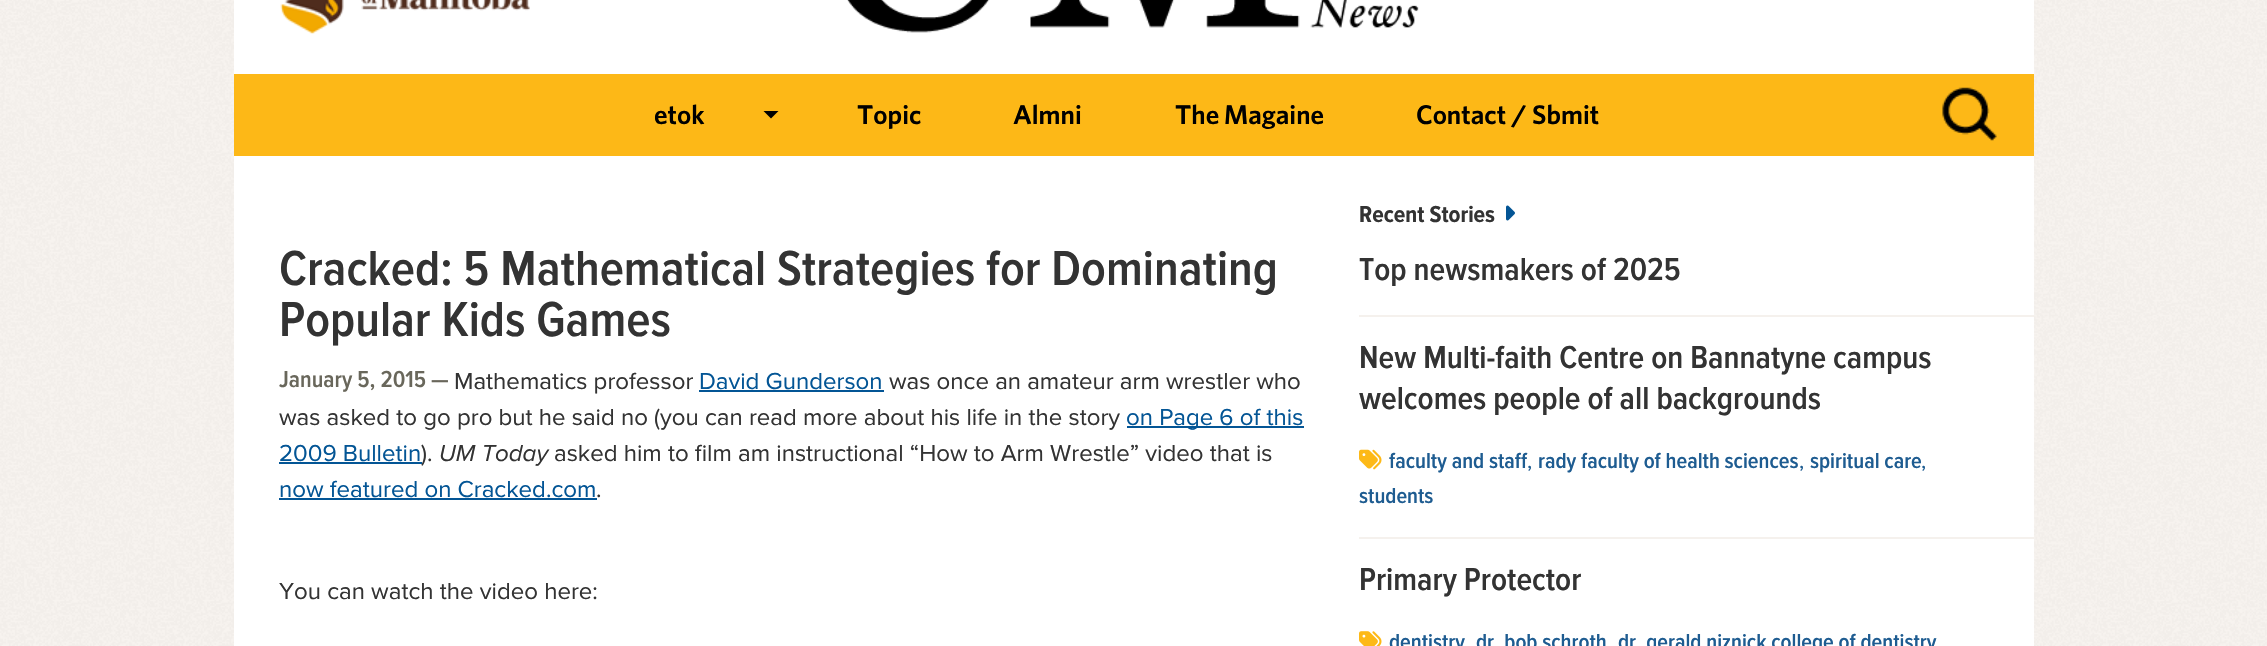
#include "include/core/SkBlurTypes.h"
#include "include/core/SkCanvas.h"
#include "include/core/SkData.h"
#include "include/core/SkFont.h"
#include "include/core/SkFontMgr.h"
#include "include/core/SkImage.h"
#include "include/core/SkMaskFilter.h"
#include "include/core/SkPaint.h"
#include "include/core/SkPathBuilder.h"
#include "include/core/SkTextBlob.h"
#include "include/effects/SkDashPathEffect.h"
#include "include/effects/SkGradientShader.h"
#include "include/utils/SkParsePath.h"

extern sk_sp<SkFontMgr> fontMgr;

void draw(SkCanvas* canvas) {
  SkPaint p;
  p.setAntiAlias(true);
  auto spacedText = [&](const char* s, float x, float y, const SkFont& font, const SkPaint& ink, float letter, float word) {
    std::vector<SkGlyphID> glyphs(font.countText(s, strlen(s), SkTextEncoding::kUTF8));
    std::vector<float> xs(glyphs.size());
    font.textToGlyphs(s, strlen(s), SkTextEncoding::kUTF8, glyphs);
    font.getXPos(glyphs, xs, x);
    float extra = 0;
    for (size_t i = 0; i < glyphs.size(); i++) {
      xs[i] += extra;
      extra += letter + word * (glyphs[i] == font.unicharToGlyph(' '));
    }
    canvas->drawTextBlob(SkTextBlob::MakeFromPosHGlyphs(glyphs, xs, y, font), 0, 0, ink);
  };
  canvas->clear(SK_ColorWHITE);
  canvas->drawImageRect(SkImages::DeferredFromEncodedData(SkData::MakeFromFileName("images/1.png")), SkRect::MakeLTRB(0, 0, 2267, 646), SkSamplingOptions());
  p.setColor(SK_ColorWHITE);
  canvas->drawRect(SkRect::MakeLTRB(234, 0, 2034, 74), p);
  canvas->drawImageRect(SkImages::DeferredFromEncodedData(SkData::MakeFromFileName("images/2.png")), SkRect::MakeLTRB(280, 0, 530, 34), SkSamplingOptions());
  canvas->drawImageRect(SkImages::DeferredFromEncodedData(SkData::MakeFromFileName("images/3.png")), SkRect::MakeLTRB(847, 0, 1419, 33), SkSamplingOptions());
  p.setColor(SkColorSetRGB(253, 184, 23));
  canvas->drawRect(SkRect::MakeLTRB(234, 74, 2034, 156), p);
  p.setColor(SK_ColorBLACK);
  canvas->drawPath(SkPathBuilder().moveTo(763.5f, 111).lineTo(778.5f, 111).lineTo(771, 118.5f).close().detach(), p);
  canvas->drawImageRect(SkImages::DeferredFromEncodedData(SkData::MakeFromFileName("images/4.png")), SkRect::MakeLTRB(1942, 87, 1997, 141), SkSamplingOptions());
  p.setColor(SK_ColorWHITE);
  canvas->drawRect(SkRect::MakeLTRB(234, 156, 2034, 646), p);
  p.setColor(SkColorSetRGB(3, 85, 149));
  canvas->drawRect(SkRect::MakeLTRB(699, 390, 884, 392), p);
  canvas->drawRect(SkRect::MakeLTRB(1127, 426, 1304, 428), p);
  canvas->drawRect(SkRect::MakeLTRB(279, 462, 422, 464), p);
  canvas->drawRect(SkRect::MakeLTRB(279, 498, 597, 500), p);
  canvas->drawImageRect(SkImages::DeferredFromEncodedData(SkData::MakeFromFileName("images/5.png")), SkRect::MakeLTRB(1506, 205, 1515, 221), SkSamplingOptions());
  p.setColor(SkColorSetRGB(245, 241, 237));
  canvas->drawRect(SkRect::MakeLTRB(1359, 315, 2034, 317), p);
  canvas->drawImageRect(SkImages::DeferredFromEncodedData(SkData::MakeFromFileName("images/6.png")), SkRect::MakeLTRB(1359, 449, 1382, 470), SkSamplingOptions());
  canvas->drawRect(SkRect::MakeLTRB(1359, 537, 2034, 539), p);
  canvas->drawImageRect(SkImages::DeferredFromEncodedData(SkData::MakeFromFileName("images/7.png")), SkRect::MakeLTRB(1359, 631, 1382, 646), SkSamplingOptions());
  SkFont font1(fontMgr->matchFamilyStyle("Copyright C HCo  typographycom", SkFontStyle::Normal()), 27);
  font1.setSubpixel(true);
  p.setColor(SK_ColorBLACK);
  canvas->drawString("Network", 654, 124, font1, p);
  canvas->drawString("Topics", 857, 124, font1, p);
  canvas->drawString("Alumni", 1013, 124, font1, p);
  spacedText("The Magazine", 1175, 124, font1, p, 0, -1);
  canvas->drawString("Contact / Submit", 1416, 124, font1, p);
  SkFont font2(fontMgr->matchFamilyStyle("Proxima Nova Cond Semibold", SkFontStyle(600, SkFontStyle::kNormal_Width, SkFontStyle::kUpright_Slant)), 51);
  font2.setSubpixel(true);
  p.setColor(SkColorSetRGB(51, 51, 51));
  canvas->drawString("Cracked: 5 Mathematical Strategies for Dominating", 279, 285, font2, p);
  canvas->drawString("Popular Kids Games", 279, 336, font2, p);
  SkFont font3(fontMgr->matchFamilyStyle("Proxima Nova Cond Semibold", SkFontStyle(600, SkFontStyle::kNormal_Width, SkFontStyle::kUpright_Slant)), 24);
  font3.setSubpixel(true);
  p.setColor(SkColorSetRGB(105, 103, 91));
  canvas->drawString("January 5, 2015 —", 279, 387, font3, p);
  SkFont font4(fontMgr->matchFamilyStyle("Proxima Nova", SkFontStyle::Normal()), 24);
  font4.setSubpixel(true);
  p.setColor(SkColorSetRGB(51, 51, 51));
  canvas->drawString("Mathematics professor", 454, 389, font4, p);
  p.setColor(SkColorSetRGB(3, 85, 149));
  canvas->drawString("David Gunderson", 699, 389, font4, p);
  p.setColor(SkColorSetRGB(51, 51, 51));
  canvas->drawString("was once an amateur arm wrestler who", 889, 389, font4, p);
  canvas->drawString("was asked to go pro but he said no (you can read more about his life in the story", 279, 425, font4, p);
  p.setColor(SkColorSetRGB(3, 85, 149));
  canvas->drawString("on Page 6 of this", 1126, 425, font4, p);
  canvas->drawString("2009 Bulletin", 279, 461, font4, p);
  p.setColor(SkColorSetRGB(51, 51, 51));
  canvas->drawString(").", 421, 461, font4, p);
  SkFont font5(fontMgr->matchFamilyStyle("Proxima Nova", SkFontStyle::Italic()), 24);
  font5.setSubpixel(true);
  canvas->drawString("UM Today", 439, 461, font5, p);
  canvas->drawString("asked him to film am instructional “How to Arm Wrestle” video that is", 554, 461, font4, p);
  p.setColor(SkColorSetRGB(3, 85, 149));
  canvas->drawString("now featured on Cracked.com", 279, 497, font4, p);
  p.setColor(SkColorSetRGB(51, 51, 51));
  canvas->drawString(".", 596, 497, font4, p);
  canvas->drawString("You can watch the video here:", 279, 599, font4, p);
  SkFont font6(fontMgr->matchFamilyStyle("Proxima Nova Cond", SkFontStyle::Bold()), 24);
  font6.setSubpixel(true);
  canvas->drawString("Recent Stories", 1359, 222, font6, p);
  SkFont font7(fontMgr->matchFamilyStyle("Proxima Nova Cond Semibold", SkFontStyle(600, SkFontStyle::kNormal_Width, SkFontStyle::kUpright_Slant)), 33);
  font7.setSubpixel(true);
  canvas->drawString("Top newsmakers of 2025", 1359, 280, font7, p);
  canvas->drawString("New Multi-faith Centre on Bannatyne campus", 1359, 368, font7, p);
  canvas->drawString("welcomes people of all backgrounds", 1359, 409, font7, p);
  SkFont font8(fontMgr->matchFamilyStyle("Proxima Nova Cond Semibold", SkFontStyle(600, SkFontStyle::kNormal_Width, SkFontStyle::kUpright_Slant)), 22.5f);
  font8.setSubpixel(true);
  p.setColor(SkColorSetRGB(30, 92, 145));
  canvas->drawString("faculty and staff", 1389, 468, font8, p);
  SkFont font9(fontMgr->matchFamilyStyle("Proxima Nova", SkFontStyle::Normal()), 22.5f);
  font9.setSubpixel(true);
  canvas->drawString(",", 1527, 468, font9, p);
  canvas->drawString("rady faculty of health sciences", 1538, 468, font8, p);
  canvas->drawString(",", 1799, 468, font9, p);
  canvas->drawString("spiritual care", 1810, 468, font8, p);
  canvas->drawString(",", 1921, 468, font9, p);
  canvas->drawString("students", 1359, 503, font8, p);
  p.setColor(SkColorSetRGB(51, 51, 51));
  canvas->drawString("Primary Protector", 1359, 590, font7, p);
  p.setColor(SkColorSetRGB(30, 92, 145));
  canvas->drawString("dentistry", 1389, 649, font8, p);
  canvas->drawString("dr. bob schroth", 1476, 649, font8, p);
  canvas->drawString("dr. gerald niznick college of dentistry", 1618, 649, font8, p);
}
